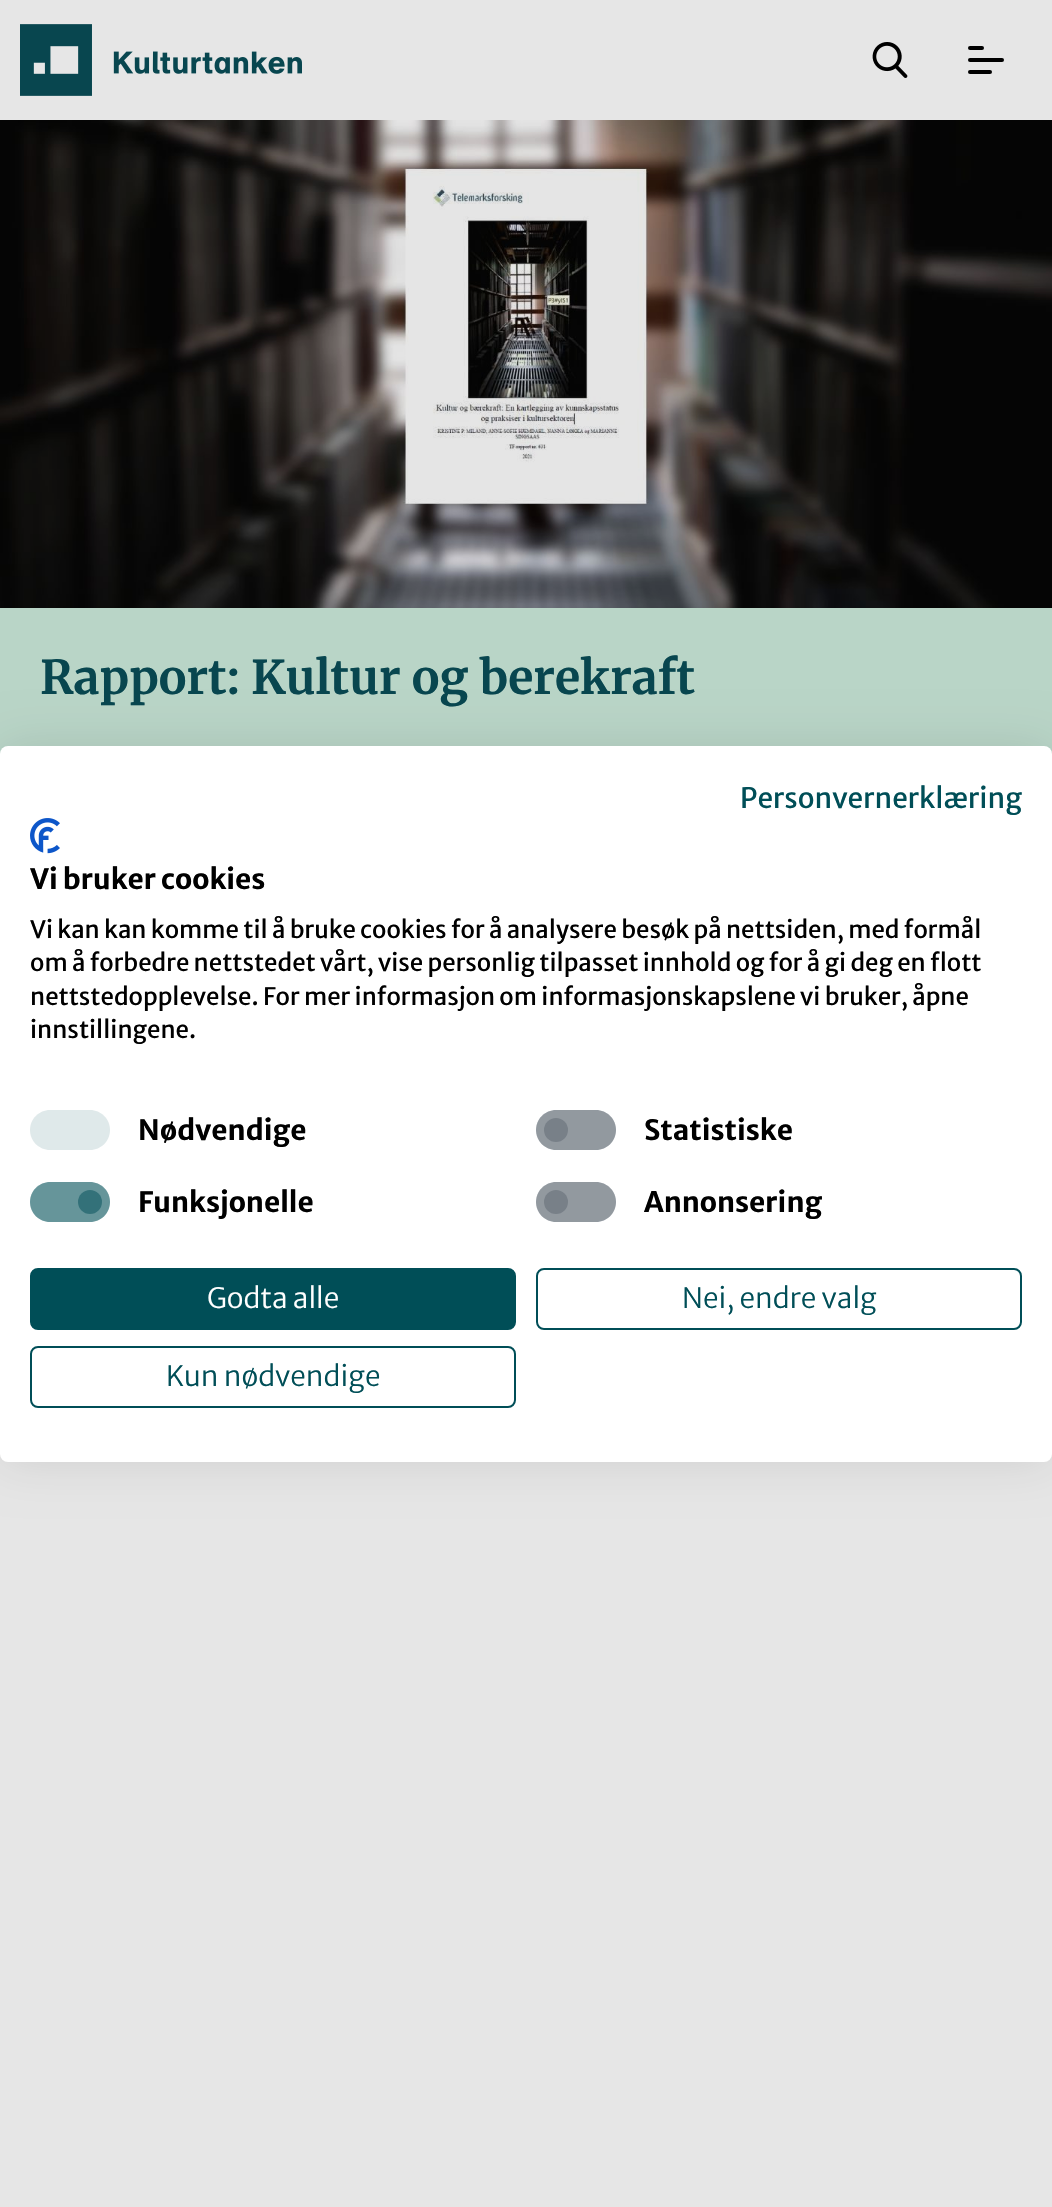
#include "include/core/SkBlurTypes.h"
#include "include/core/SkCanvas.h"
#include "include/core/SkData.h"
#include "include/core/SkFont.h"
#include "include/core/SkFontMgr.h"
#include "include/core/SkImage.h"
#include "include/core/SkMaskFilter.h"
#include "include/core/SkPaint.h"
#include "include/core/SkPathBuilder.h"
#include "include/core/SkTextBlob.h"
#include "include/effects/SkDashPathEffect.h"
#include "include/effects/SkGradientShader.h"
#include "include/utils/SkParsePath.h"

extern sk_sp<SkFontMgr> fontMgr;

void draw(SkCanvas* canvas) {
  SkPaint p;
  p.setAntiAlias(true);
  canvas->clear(SkColorSetRGB(230, 230, 230));
  canvas->drawImageRect(SkImages::DeferredFromEncodedData(SkData::MakeFromFileName("images/1.png")), SkRect::MakeLTRB(20, 24, 302, 96), SkSamplingOptions());
  canvas->drawImageRect(SkImages::DeferredFromEncodedData(SkData::MakeFromFileName("images/2.png")), SkRect::MakeLTRB(872, 42, 908, 78), SkSamplingOptions());
  p.setColor(SK_ColorBLACK);
  canvas->drawRoundRect(SkRect::MakeLTRB(968, 46, 984, 50), 2, 2, p);
  canvas->drawRoundRect(SkRect::MakeLTRB(968, 58, 1004, 62), 2, 2, p);
  canvas->drawRoundRect(SkRect::MakeLTRB(968, 70, 992, 74), 2, 2, p);
  canvas->drawImageRect(SkImages::DeferredFromEncodedData(SkData::MakeFromFileName("images/3.png")), SkRect::MakeLTRB(0, 120, 1052, 608), SkSamplingOptions());
  p.setColor(SkColorSetRGB(185, 213, 199));
  canvas->drawRect(SkRect::MakeLTRB(0, 608, 1052, 754), p);
  p.setColor(SkColorSetARGB(26, 0, 0, 0));
  p.setMaskFilter(SkMaskFilter::MakeBlur(kNormal_SkBlurStyle, 24));
  canvas->drawRoundRect(SkRect::MakeLTRB(0, 746, 1052, 1462), 8, 8, p);
  p.setMaskFilter(nullptr);
  p.setColor(SK_ColorWHITE);
  canvas->drawRoundRect(SkRect::MakeLTRB(0, 746, 1052, 1462), 8, 8, p);
  canvas->drawImageRect(SkImages::DeferredFromEncodedData(SkData::MakeFromFileName("images/4.png")), SkRect::MakeLTRB(30, 818, 60, 854), SkSamplingOptions());
  p.setColor(SkColorSetRGB(223, 233, 234));
  canvas->drawPath(SkPathBuilder().moveTo(50, 1110).lineTo(90, 1110).cubicTo(101, 1110, 110, 1119, 110, 1130).cubicTo(110, 1141, 101, 1150, 90, 1150).lineTo(50, 1150).cubicTo(39, 1150, 30, 1141, 30, 1130).cubicTo(30, 1119, 39, 1110, 50, 1110).close().detach(), p);
  p.setColor(SkColorSetRGB(233, 236, 239));
  canvas->drawRoundRect(SkRect::MakeLTRB(536, 1110, 616, 1150), 20, 20, p);
  p.setColor(SkColorSetRGB(146, 153, 159));
  canvas->drawCircle(556, 1130, 12, p);
  p.setColor(SkColorSetARGB(179, 108, 117, 125));
  canvas->drawPath(SkPathBuilder().moveTo(556, 1110).lineTo(596, 1110).cubicTo(607, 1110, 616, 1119, 616, 1130).cubicTo(616, 1141, 607, 1150, 596, 1150).lineTo(556, 1150).cubicTo(545, 1150, 536, 1141, 536, 1130).cubicTo(536, 1119, 545, 1110, 556, 1110).close().detach(), p);
  p.setColor(SkColorSetRGB(204, 220, 221));
  canvas->drawRoundRect(SkRect::MakeLTRB(30, 1182, 110, 1222), 20, 20, p);
  p.setColor(SkColorSetRGB(102, 149, 154));
  canvas->drawCircle(90, 1202, 12, p);
  p.setColor(SkColorSetARGB(128, 0, 78, 87));
  canvas->drawPath(SkPathBuilder().moveTo(50, 1182).lineTo(90, 1182).cubicTo(101, 1182, 110, 1191, 110, 1202).cubicTo(110, 1213, 101, 1222, 90, 1222).lineTo(50, 1222).cubicTo(39, 1222, 30, 1213, 30, 1202).cubicTo(30, 1191, 39, 1182, 50, 1182).close().detach(), p);
  p.setColor(SkColorSetRGB(233, 236, 239));
  canvas->drawRoundRect(SkRect::MakeLTRB(536, 1182, 616, 1222), 20, 20, p);
  p.setColor(SkColorSetRGB(146, 153, 159));
  canvas->drawCircle(556, 1202, 12, p);
  p.setColor(SkColorSetARGB(179, 108, 117, 125));
  canvas->drawPath(SkPathBuilder().moveTo(556, 1182).lineTo(596, 1182).cubicTo(607, 1182, 616, 1191, 616, 1202).cubicTo(616, 1213, 607, 1222, 596, 1222).lineTo(556, 1222).cubicTo(545, 1222, 536, 1213, 536, 1202).cubicTo(536, 1191, 545, 1182, 556, 1182).close().detach(), p);
  p.setColor(SkColorSetRGB(0, 78, 87));
  canvas->drawRoundRect(SkRect::MakeLTRB(31, 1269, 515, 1329), 7, 7, p);
  p.setStyle(SkPaint::kStroke_Style);
  p.setStrokeWidth(2);
  canvas->drawRoundRect(SkRect::MakeLTRB(31, 1269, 515, 1329), 7, 7, p);
  canvas->drawRoundRect(SkRect::MakeLTRB(537, 1269, 1021, 1329), 7, 7, p);
  canvas->drawRoundRect(SkRect::MakeLTRB(31, 1347, 515, 1407), 7, 7, p);
  SkFont font1(fontMgr->matchFamilyStyle("Merriweather", SkFontStyle::Bold()), 46.5f);
  font1.setSubpixel(true);
  p.setStyle(SkPaint::kFill_Style);
  p.setColor(SkColorSetRGB(8, 70, 79));
  canvas->drawString("Rapport: Kultur og berekraft", 40, 694, font1, p);
  SkFont font2(fontMgr->matchFamilyStyle("Merriweather Sans", SkFontStyle::Normal()), 28);
  font2.setSubpixel(true);
  p.setColor(SkColorSetRGB(0, 78, 87));
  canvas->drawString("Personvernerklæring", 740, 808, font2, p);
  SkFont font3(fontMgr->matchFamilyStyle("Merriweather Sans", SkFontStyle::Bold()), 28);
  font3.setSubpixel(true);
  p.setColor(SK_ColorBLACK);
  canvas->drawString("Vi bruker cookies", 30, 889, font3, p);
  SkFont font4(fontMgr->matchFamilyStyle("Merriweather Sans", SkFontStyle::Normal()), 24);
  font4.setSubpixel(true);
  canvas->drawString("Vi kan kan komme til å bruke cookies for å analysere besøk på nettsiden, med formål", 30, 938, font4, p);
  canvas->drawString("om å forbedre nettstedet vårt, vise personlig tilpasset innhold og for å gi deg en flott", 30, 971, font4, p);
  canvas->drawString("nettstedopplevelse. For mer informasjon om informasjonskapslene vi bruker, åpne", 30, 1005, font4, p);
  canvas->drawString("innstillingene.", 30, 1038, font4, p);
  canvas->drawString("Nødvendige", 138, 1140, font3, p);
  canvas->drawString("Statistiske", 644, 1140, font3, p);
  canvas->drawString("Funksjonelle", 138, 1212, font3, p);
  canvas->drawString("Annonsering", 644, 1212, font3, p);
  SkFont font5(fontMgr->matchFamilyStyle("Merriweather Sans", SkFontStyle(300, SkFontStyle::kNormal_Width, SkFontStyle::kUpright_Slant)), 28);
  font5.setSubpixel(true);
  p.setColor(SK_ColorWHITE);
  canvas->drawString("Godta alle", 207, 1308, font5, p);
  p.setColor(SkColorSetRGB(0, 78, 87));
  canvas->drawString("Nei, endre valg", 682, 1308, font5, p);
  canvas->drawString("Kun nødvendige", 166, 1386, font5, p);
}
